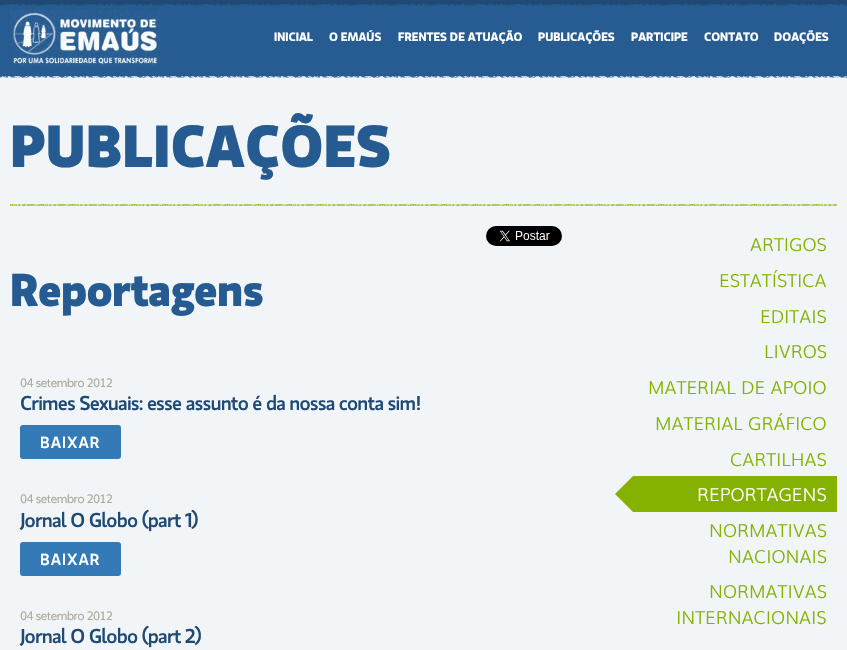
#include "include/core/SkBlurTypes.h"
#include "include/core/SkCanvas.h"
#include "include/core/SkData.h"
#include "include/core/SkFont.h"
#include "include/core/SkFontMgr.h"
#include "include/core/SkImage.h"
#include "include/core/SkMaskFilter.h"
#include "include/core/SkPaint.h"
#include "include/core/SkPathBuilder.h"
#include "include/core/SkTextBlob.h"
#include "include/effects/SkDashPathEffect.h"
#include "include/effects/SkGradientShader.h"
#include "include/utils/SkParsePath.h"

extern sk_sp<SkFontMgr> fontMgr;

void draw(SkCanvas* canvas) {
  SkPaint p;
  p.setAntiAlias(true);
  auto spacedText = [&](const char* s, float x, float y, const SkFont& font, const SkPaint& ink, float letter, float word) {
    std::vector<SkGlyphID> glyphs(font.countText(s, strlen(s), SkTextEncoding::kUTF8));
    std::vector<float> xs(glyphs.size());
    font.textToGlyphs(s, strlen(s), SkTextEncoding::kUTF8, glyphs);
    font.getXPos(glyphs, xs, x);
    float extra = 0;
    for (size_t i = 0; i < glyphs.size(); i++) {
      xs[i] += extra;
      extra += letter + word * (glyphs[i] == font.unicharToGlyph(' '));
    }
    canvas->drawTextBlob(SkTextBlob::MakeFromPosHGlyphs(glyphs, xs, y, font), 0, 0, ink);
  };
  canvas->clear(SkColorSetRGB(241, 245, 248));
  p.setColor(SkColorSetRGB(39, 92, 146));
  canvas->drawRect(SkRect::MakeLTRB(0, 6, 847, 75), p);
  canvas->drawImageRect(SkImages::DeferredFromEncodedData(SkData::MakeFromFileName("images/1.png")), SkRect::MakeLTRB(0, 0, 847, 6), SkSamplingOptions());
  canvas->drawImageRect(SkImages::DeferredFromEncodedData(SkData::MakeFromFileName("images/2.png")), SkRect::MakeLTRB(10, 10, 160, 66), SkSamplingOptions());
  canvas->drawImageRect(SkImages::DeferredFromEncodedData(SkData::MakeFromFileName("images/3.png")), SkRect::MakeLTRB(0, 75, 847, 78), SkSamplingOptions());
  canvas->drawImageRect(SkImages::DeferredFromEncodedData(SkData::MakeFromFileName("images/4.png")), SkRect::MakeLTRB(10, 204, 837, 206), SkSamplingOptions());
  canvas->drawImageRect(SkImages::DeferredFromEncodedData(SkData::MakeFromFileName("images/5.png")), SkRect::MakeLTRB(486, 226, 562, 246), SkSamplingOptions());
  p.setColor(SkColorSetRGB(51, 122, 183));
  canvas->drawRoundRect(SkRect::MakeLTRB(20, 425, 121, 459), 3, 3, p);
  canvas->drawRoundRect(SkRect::MakeLTRB(20, 542, 121, 576), 3, 3, p);
  p.setColor(SkColorSetRGB(133, 178, 0));
  canvas->drawRect(SkRect::MakeLTRB(633, 476, 837, 512), p);
  canvas->drawPath(SkPathBuilder().moveTo(633, 476).lineTo(633, 512).lineTo(615, 494).close().detach(), p);
  SkFont font1(fontMgr->matchFamilyStyle("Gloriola", SkFontStyle(600, SkFontStyle::kNormal_Width, SkFontStyle::kUpright_Slant)), 12);
  font1.setSubpixel(true);
  p.setColor(SK_ColorWHITE);
  canvas->drawString("INICIAL", 274, 41, font1, p);
  canvas->drawString("O EMAÚS", 329, 41, font1, p);
  canvas->drawString("FRENTES DE ATUAÇÃO", 398, 41, font1, p);
  canvas->drawString("PUBLICAÇÕES", 538, 41, font1, p);
  canvas->drawString("PARTICIPE", 631, 41, font1, p);
  canvas->drawString("CONTATO", 704, 41, font1, p);
  canvas->drawString("DOAÇÕES", 774, 41, font1, p);
  SkFont font2(fontMgr->matchFamilyStyle("Gloriola", SkFontStyle::Bold()), 59);
  font2.setSubpixel(true);
  p.setColor(SkColorSetRGB(38, 91, 146));
  canvas->drawString("PUBLICAÇÕES", 10, 167, font2, p);
  SkFont font3(fontMgr->matchFamilyStyle("Gloriola", SkFontStyle::Bold()), 46);
  font3.setSubpixel(true);
  spacedText("Reportagens", 10, 306, font3, p, -0.8f, 0);
  SkFont font4(fontMgr->matchFamilyStyle("Muli", SkFontStyle::Normal()), 12);
  font4.setSubpixel(true);
  p.setColor(SkColorSetRGB(172, 172, 157));
  spacedText("04 setembro 2012", 20, 387, font4, p, -0.8f, 0);
  SkFont font5(fontMgr->matchFamilyStyle("Gloriola", SkFontStyle(500, SkFontStyle::kNormal_Width, SkFontStyle::kUpright_Slant)), 20);
  font5.setSubpixel(true);
  p.setColor(SkColorSetRGB(31, 74, 118));
  spacedText("Crimes Sexuais: esse assunto é da nossa conta sim!", 20, 410, font5, p, -0.8f, 0);
  SkFont font6(fontMgr->matchFamilyStyle("Gloriola", SkFontStyle(500, SkFontStyle::kNormal_Width, SkFontStyle::kUpright_Slant)), 16);
  font6.setSubpixel(true);
  p.setColor(SK_ColorWHITE);
  spacedText("BAIXAR", 40, 448, font6, p, 1, 0);
  p.setColor(SkColorSetRGB(172, 172, 157));
  spacedText("04 setembro 2012", 20, 503, font4, p, -0.8f, 0);
  p.setColor(SkColorSetRGB(31, 74, 118));
  spacedText("Jornal O Globo (part 1)", 20, 527, font5, p, -0.8f, 0);
  p.setColor(SK_ColorWHITE);
  spacedText("BAIXAR", 40, 565, font6, p, 1, 0);
  p.setColor(SkColorSetRGB(172, 172, 157));
  spacedText("04 setembro 2012", 20, 620, font4, p, -0.8f, 0);
  p.setColor(SkColorSetRGB(31, 74, 118));
  spacedText("Jornal O Globo (part 2)", 20, 643, font5, p, -0.8f, 0);
  SkFont font7(fontMgr->matchFamilyStyle("Muli", SkFontStyle(300, SkFontStyle::kNormal_Width, SkFontStyle::kUpright_Slant)), 18);
  font7.setSubpixel(true);
  p.setColor(SkColorSetRGB(133, 178, 0));
  canvas->drawString("ARTIGOS", 750, 251, font7, p);
  canvas->drawString("ESTATÍSTICA", 719, 287, font7, p);
  canvas->drawString("EDITAIS", 760, 323, font7, p);
  canvas->drawString("LIVROS", 764, 358, font7, p);
  canvas->drawString("MATERIAL DE APOIO", 648, 394, font7, p);
  canvas->drawString("MATERIAL GRÁFICO", 655, 430, font7, p);
  canvas->drawString("CARTILHAS", 730, 466, font7, p);
  p.setColor(SK_ColorWHITE);
  canvas->drawString("REPORTAGENS", 697, 501, font7, p);
  p.setColor(SkColorSetRGB(133, 178, 0));
  canvas->drawString("NORMATIVAS", 709, 537, font7, p);
  canvas->drawString("NACIONAIS", 728, 563, font7, p);
  canvas->drawString("NORMATIVAS", 709, 598, font7, p);
  canvas->drawString("INTERNACIONAIS", 676, 624, font7, p);
}
